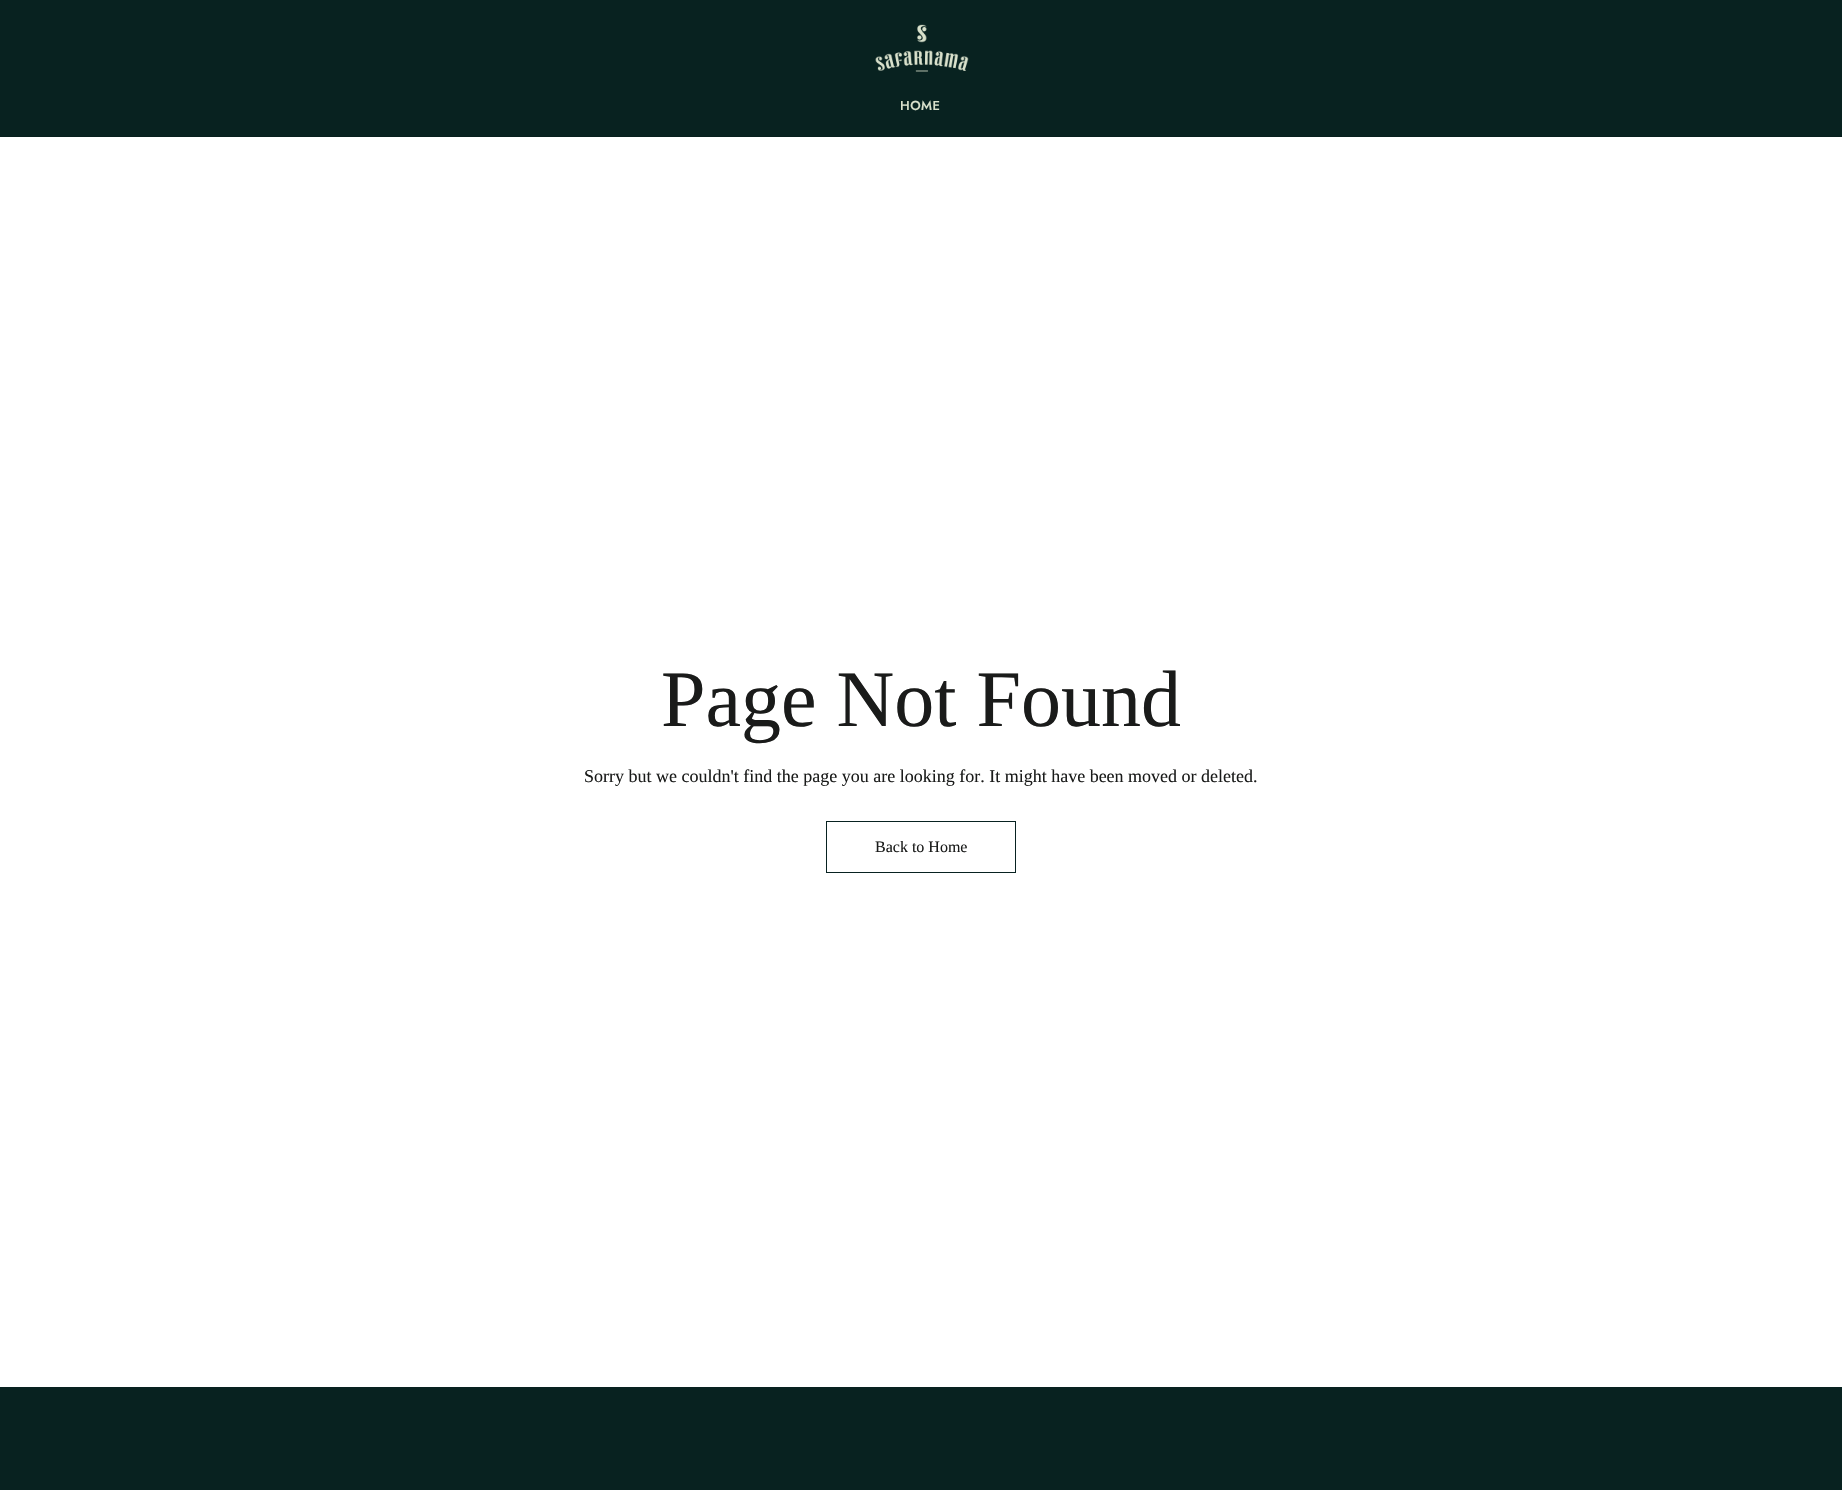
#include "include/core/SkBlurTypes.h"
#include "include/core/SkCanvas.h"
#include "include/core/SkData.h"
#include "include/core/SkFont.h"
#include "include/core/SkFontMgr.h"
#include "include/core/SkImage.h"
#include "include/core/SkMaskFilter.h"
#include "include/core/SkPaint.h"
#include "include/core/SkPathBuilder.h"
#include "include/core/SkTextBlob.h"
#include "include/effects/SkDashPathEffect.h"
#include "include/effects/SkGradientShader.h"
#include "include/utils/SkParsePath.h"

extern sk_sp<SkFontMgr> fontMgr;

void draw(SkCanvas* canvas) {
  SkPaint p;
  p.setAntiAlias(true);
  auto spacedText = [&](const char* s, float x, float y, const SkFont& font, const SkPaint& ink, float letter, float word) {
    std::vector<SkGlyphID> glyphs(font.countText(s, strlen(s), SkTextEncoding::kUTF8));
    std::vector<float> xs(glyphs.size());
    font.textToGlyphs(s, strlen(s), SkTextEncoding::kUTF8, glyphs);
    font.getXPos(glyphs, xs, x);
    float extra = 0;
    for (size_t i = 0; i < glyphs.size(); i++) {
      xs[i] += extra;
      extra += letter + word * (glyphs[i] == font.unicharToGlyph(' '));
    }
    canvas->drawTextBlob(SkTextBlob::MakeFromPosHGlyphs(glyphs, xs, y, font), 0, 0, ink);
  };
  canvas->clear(SK_ColorWHITE);
  p.setColor(SkColorSetRGB(8, 34, 32));
  canvas->drawRect(SkRect::MakeLTRB(0, 0, 1842, 136), p);
  p.setColor(SkColorSetRGB(7, 31, 29));
  canvas->drawRect(SkRect::MakeLTRB(0, 136, 1842, 137), p);
  canvas->drawImageRect(SkImages::DeferredFromEncodedData(SkData::MakeFromFileName("images/1.png")), SkRect::MakeLTRB(875, 24, 969, 72), SkSamplingOptions());
  p.setStyle(SkPaint::kStroke_Style);
  p.setStrokeWidth(1);
  p.setColor(SkColorSetRGB(8, 34, 33));
  canvas->drawRect(SkRect::MakeLTRB(826.5f, 821.5f, 1015.5f, 872.5f), p);
  p.setStyle(SkPaint::kFill_Style);
  p.setColor(SkColorSetRGB(8, 34, 32));
  canvas->drawRect(SkRect::MakeLTRB(0, 1387, 1842, 1490), p);
  SkFont font1(fontMgr->matchFamilyStyle("Jost", SkFontStyle(500, SkFontStyle::kNormal_Width, SkFontStyle::kUpright_Slant)), 13);
  font1.setSubpixel(true);
  p.setColor(SkColorSetRGB(217, 225, 204));
  spacedText("HOME", 900, 110, font1, p, 0.5f, 0);
  SkFont font2(fontMgr->matchFamilyStyle("Liberation Serif", SkFontStyle::Normal()), 80);
  font2.setSubpixel(true);
  p.setColor(SkColorSetRGB(26, 27, 26));
  canvas->drawString("Page Not Found", 661, 726, font2, p);
  SkFont font3(fontMgr->matchFamilyStyle("Liberation Serif", SkFontStyle::Normal()), 18);
  font3.setSubpixel(true);
  canvas->drawString("Sorry but we couldn't find the page you are looking for. It might have been moved or deleted.", 584, 782, font3, p);
  SkFont font4(fontMgr->matchFamilyStyle("Liberation Serif", SkFontStyle::Normal()), 16);
  font4.setSubpixel(true);
  canvas->drawString("Back to Home", 875, 852, font4, p);
}
